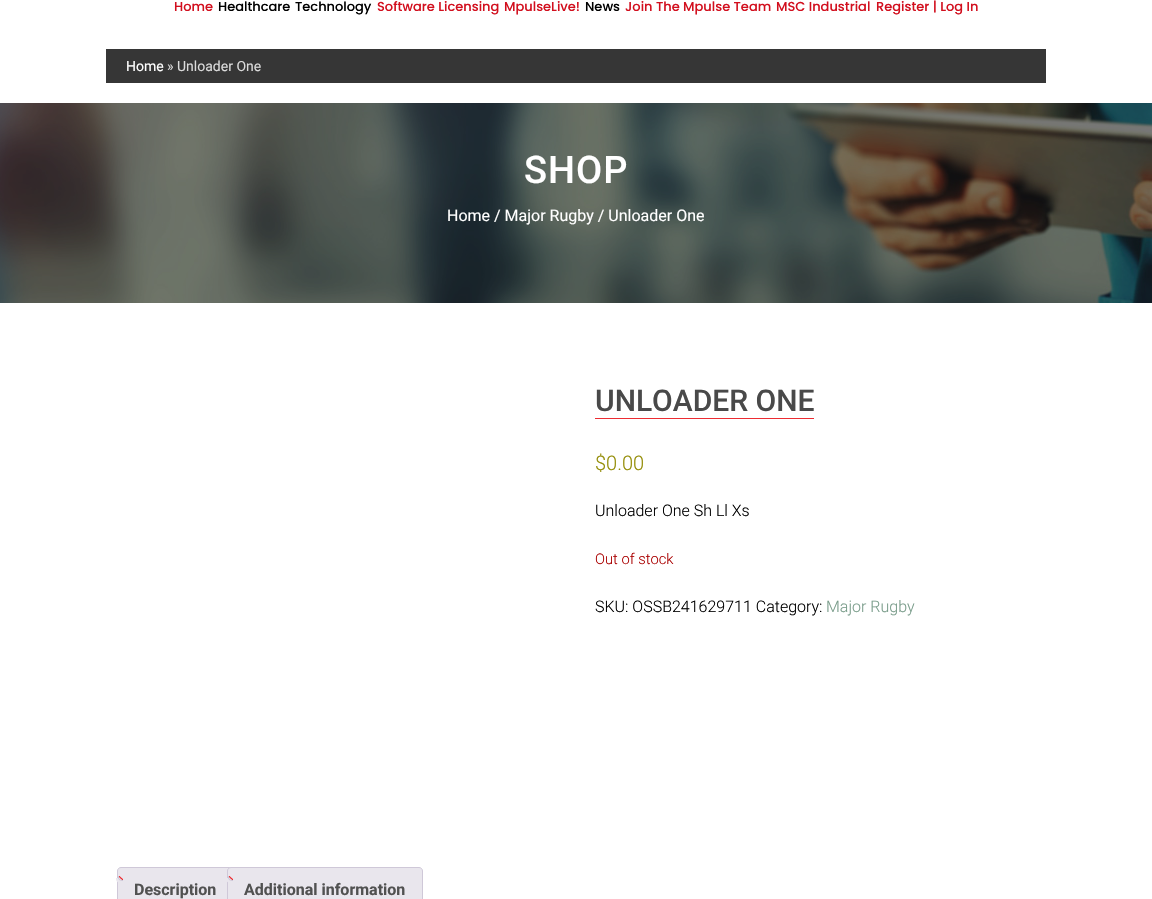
#include "include/core/SkBlurTypes.h"
#include "include/core/SkCanvas.h"
#include "include/core/SkData.h"
#include "include/core/SkFont.h"
#include "include/core/SkFontMgr.h"
#include "include/core/SkImage.h"
#include "include/core/SkMaskFilter.h"
#include "include/core/SkPaint.h"
#include "include/core/SkPathBuilder.h"
#include "include/core/SkTextBlob.h"
#include "include/effects/SkDashPathEffect.h"
#include "include/effects/SkGradientShader.h"
#include "include/utils/SkParsePath.h"

extern sk_sp<SkFontMgr> fontMgr;

void draw(SkCanvas* canvas) {
  SkPaint p;
  p.setAntiAlias(true);
  auto spacedText = [&](const char* s, float x, float y, const SkFont& font, const SkPaint& ink, float letter, float word) {
    std::vector<SkGlyphID> glyphs(font.countText(s, strlen(s), SkTextEncoding::kUTF8));
    std::vector<float> xs(glyphs.size());
    font.textToGlyphs(s, strlen(s), SkTextEncoding::kUTF8, glyphs);
    font.getXPos(glyphs, xs, x);
    float extra = 0;
    for (size_t i = 0; i < glyphs.size(); i++) {
      xs[i] += extra;
      extra += letter + word * (glyphs[i] == font.unicharToGlyph(' '));
    }
    canvas->drawTextBlob(SkTextBlob::MakeFromPosHGlyphs(glyphs, xs, y, font), 0, 0, ink);
  };
  canvas->clear(SK_ColorWHITE);
  p.setColor(SkColorSetRGB(54, 54, 54));
  canvas->drawRect(SkRect::MakeLTRB(106, 49, 1046, 83), p);
  canvas->drawImageRect(SkImages::DeferredFromEncodedData(SkData::MakeFromFileName("images/1.png")), SkRect::MakeLTRB(0, 103, 1152, 303), SkSamplingOptions());
  p.setColor(SkColorSetRGB(236, 44, 50));
  canvas->drawRect(SkRect::MakeLTRB(595, 418, 814, 419), p);
  p.setColor(SkColorSetRGB(233, 230, 237));
  canvas->drawPath(SkPathBuilder().moveTo(121, 867.5f).lineTo(229, 867.5f).cubicTo(231, 867.5f, 232.5f, 869, 232.5f, 871).lineTo(232.5f, 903.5f).lineTo(117.5f, 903.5f).lineTo(117.5f, 871).cubicTo(117.5f, 869, 119, 867.5f, 121, 867.5f).close().detach(), p);
  p.setStyle(SkPaint::kStroke_Style);
  p.setStrokeWidth(1);
  p.setColor(SkColorSetRGB(207, 200, 216));
  canvas->drawPath(SkPathBuilder().moveTo(121, 867.5f).lineTo(229, 867.5f).cubicTo(231, 867.5f, 232.5f, 869, 232.5f, 871).lineTo(232.5f, 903.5f).lineTo(117.5f, 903.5f).lineTo(117.5f, 871).cubicTo(117.5f, 869, 119, 867.5f, 121, 867.5f).close().detach(), p);
  p.setStyle(SkPaint::kFill_Style);
  p.setColor(SkColorSetRGB(233, 230, 237));
  canvas->drawPath(SkPathBuilder().moveTo(116, 878).cubicTo(116, 881.5f, 117.5f, 883, 121, 883).lineTo(121, 881).cubicTo(119.5f, 880.5f, 118.5f, 879.5f, 118, 878).close().detach(), p);
  canvas->drawImageRect(SkImages::DeferredFromEncodedData(SkData::MakeFromFileName("images/2.png")), SkRect::MakeLTRB(119, 876, 123, 881), SkSamplingOptions());
  p.setColor(SkColorSetRGB(207, 200, 216));
  canvas->drawPath(SkPathBuilder(SkPathFillType::kEvenOdd).moveTo(118, 876).lineTo(123, 876).lineTo(123, 881).cubicTo(120.5f, 881, 118, 880, 118, 877).close().moveTo(119, 876).lineTo(123, 876).lineTo(123, 880).cubicTo(121, 880, 119, 879.5f, 119, 877).close().detach(), p);
  p.setColor(SkColorSetRGB(233, 230, 237));
  canvas->drawPath(SkPathBuilder().moveTo(231, 867.5f).lineTo(419, 867.5f).cubicTo(421, 867.5f, 422.5f, 869, 422.5f, 871).lineTo(422.5f, 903.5f).lineTo(227.5f, 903.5f).lineTo(227.5f, 871).cubicTo(227.5f, 869, 229, 867.5f, 231, 867.5f).close().detach(), p);
  p.setStyle(SkPaint::kStroke_Style);
  p.setColor(SkColorSetRGB(207, 200, 216));
  canvas->drawPath(SkPathBuilder().moveTo(231, 867.5f).lineTo(419, 867.5f).cubicTo(421, 867.5f, 422.5f, 869, 422.5f, 871).lineTo(422.5f, 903.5f).lineTo(227.5f, 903.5f).lineTo(227.5f, 871).cubicTo(227.5f, 869, 229, 867.5f, 231, 867.5f).close().detach(), p);
  p.setStyle(SkPaint::kFill_Style);
  p.setColor(SkColorSetRGB(233, 230, 237));
  canvas->drawPath(SkPathBuilder().moveTo(226, 878).cubicTo(226, 881.5f, 227.5f, 883, 231, 883).lineTo(231, 881).cubicTo(229.5f, 880.5f, 228.5f, 879.5f, 228, 878).close().detach(), p);
  canvas->drawImageRect(SkImages::DeferredFromEncodedData(SkData::MakeFromFileName("images/2.png")), SkRect::MakeLTRB(229, 876, 233, 881), SkSamplingOptions());
  p.setColor(SkColorSetRGB(207, 200, 216));
  canvas->drawPath(SkPathBuilder(SkPathFillType::kEvenOdd).moveTo(228, 876).lineTo(233, 876).lineTo(233, 881).cubicTo(230.5f, 881, 228, 880, 228, 877).close().moveTo(229, 876).lineTo(233, 876).lineTo(233, 880).cubicTo(231, 880, 229, 879.5f, 229, 877).close().detach(), p);
  SkFont font1(fontMgr->matchFamilyStyle("Poppins", SkFontStyle(500, SkFontStyle::kNormal_Width, SkFontStyle::kUpright_Slant)), 13);
  font1.setSubpixel(true);
  p.setColor(SkColorSetRGB(210, 15, 30));
  canvas->drawString("Home", 174, 11, font1, p);
  p.setColor(SK_ColorBLACK);
  canvas->drawString("Healthcare", 218, 11, font1, p);
  canvas->drawString("Technology", 295, 11, font1, p);
  p.setColor(SkColorSetRGB(210, 15, 30));
  canvas->drawString("Software Licensing", 377, 11, font1, p);
  canvas->drawString("MpulseLive!", 504, 11, font1, p);
  p.setColor(SK_ColorBLACK);
  canvas->drawString("News", 585, 11, font1, p);
  p.setColor(SkColorSetRGB(210, 15, 30));
  canvas->drawString("Join The Mpulse Team", 625, 11, font1, p);
  canvas->drawString("MSC Industrial", 776, 11, font1, p);
  canvas->drawString("Register | Log In", 876, 11, font1, p);
  SkFont font2(fontMgr->matchFamilyStyle("Roboto", SkFontStyle::Normal()), 14);
  font2.setSubpixel(true);
  p.setColor(SK_ColorWHITE);
  canvas->drawString("Home", 126, 71, font2, p);
  p.setColor(SkColorSetRGB(219, 219, 219));
  canvas->drawString("» Unloader One", 167, 71, font2, p);
  SkFont font3(fontMgr->matchFamilyStyle("Roboto", SkFontStyle(500, SkFontStyle::kNormal_Width, SkFontStyle::kUpright_Slant)), 38);
  font3.setSubpixel(true);
  p.setColor(SK_ColorWHITE);
  spacedText("SHOP", 524, 183, font3, p, 1, 0);
  SkFont font4(fontMgr->matchFamilyStyle("Roboto", SkFontStyle::Normal()), 16);
  font4.setSubpixel(true);
  canvas->drawString("Home / Major Rugby / Unloader One", 447, 221, font4, p);
  SkFont font5(fontMgr->matchFamilyStyle("Roboto", SkFontStyle(500, SkFontStyle::kNormal_Width, SkFontStyle::kUpright_Slant)), 30);
  font5.setSubpixel(true);
  p.setColor(SkColorSetRGB(73, 73, 73));
  canvas->drawString("UNLOADER ONE", 595, 411, font5, p);
  SkFont font6(fontMgr->matchFamilyStyle("Roboto", SkFontStyle(300, SkFontStyle::kNormal_Width, SkFontStyle::kUpright_Slant)), 20);
  font6.setSubpixel(true);
  p.setColor(SkColorSetRGB(149, 142, 9));
  canvas->drawString("$0.00", 595, 470, font6, p);
  SkFont font7(fontMgr->matchFamilyStyle("Roboto", SkFontStyle(300, SkFontStyle::kNormal_Width, SkFontStyle::kUpright_Slant)), 16);
  font7.setSubpixel(true);
  p.setColor(SK_ColorBLACK);
  canvas->drawString("Unloader One Sh Ll Xs", 595, 516, font7, p);
  SkFont font8(fontMgr->matchFamilyStyle("Roboto", SkFontStyle(300, SkFontStyle::kNormal_Width, SkFontStyle::kUpright_Slant)), 14.75f);
  font8.setSubpixel(true);
  p.setColor(SkColorSetRGB(170, 0, 0));
  canvas->drawString("Out of stock", 595, 564, font8, p);
  p.setColor(SK_ColorBLACK);
  canvas->drawString("SKU: OSSB241629711 Category:", 595, 612, font7, p);
  p.setColor(SkColorSetRGB(121, 156, 138));
  canvas->drawString("Major Rugby", 826, 612, font7, p);
  SkFont font9(fontMgr->matchFamilyStyle("Roboto", SkFontStyle::Bold()), 16);
  font9.setSubpixel(true);
  p.setColor(SkColorSetRGB(81, 81, 81));
  canvas->drawString("Description", 134, 895, font9, p);
  canvas->drawString("Additional information", 244, 895, font9, p);
}
